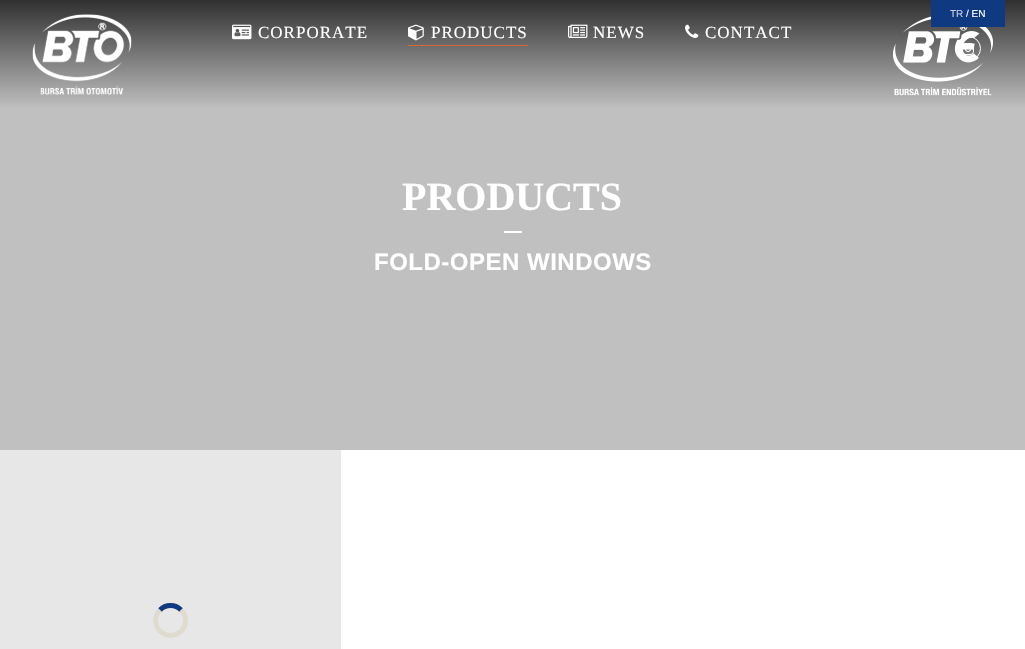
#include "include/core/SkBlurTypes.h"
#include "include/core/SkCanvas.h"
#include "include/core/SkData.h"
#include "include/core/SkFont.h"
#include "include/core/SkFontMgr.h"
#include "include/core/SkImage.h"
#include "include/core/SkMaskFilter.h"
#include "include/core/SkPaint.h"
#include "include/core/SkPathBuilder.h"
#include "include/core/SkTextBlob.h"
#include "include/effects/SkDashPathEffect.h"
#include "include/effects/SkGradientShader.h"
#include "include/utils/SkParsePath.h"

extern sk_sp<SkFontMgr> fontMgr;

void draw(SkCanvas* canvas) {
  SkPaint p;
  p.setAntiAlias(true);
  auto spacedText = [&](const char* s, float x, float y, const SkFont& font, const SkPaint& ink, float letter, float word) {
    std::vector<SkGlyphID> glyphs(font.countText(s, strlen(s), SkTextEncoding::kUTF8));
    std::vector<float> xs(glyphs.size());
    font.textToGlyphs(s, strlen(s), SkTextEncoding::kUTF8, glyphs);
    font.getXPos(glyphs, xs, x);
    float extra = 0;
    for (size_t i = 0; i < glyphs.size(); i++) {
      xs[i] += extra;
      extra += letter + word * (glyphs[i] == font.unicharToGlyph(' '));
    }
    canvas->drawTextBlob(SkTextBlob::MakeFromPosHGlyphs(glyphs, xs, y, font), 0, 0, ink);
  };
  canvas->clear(SK_ColorWHITE);
  {
    const SkColor colors[] = {SkColorSetRGB(48, 48, 48), SkColorSetRGB(192, 192, 192)};
    const float stops[] = {0, 1};
    const SkPoint ends[] = {{513, 0}, {513, 109}};
    p.setShader(SkGradientShader::MakeLinear(ends, colors, stops, 2, SkTileMode::kClamp));
    p.setAlpha(255);
  }
  canvas->drawRect(SkRect::MakeLTRB(0, 0, 1025, 109), p);
  canvas->drawImageRect(SkImages::DeferredFromEncodedData(SkData::MakeFromFileName("images/6.png")), SkRect::MakeLTRB(893, 16, 993, 96), SkSamplingOptions());
  p.setShader(nullptr);
  p.setColor(SkColorSetRGB(15, 57, 128));
  canvas->drawRect(SkRect::MakeLTRB(931, 0, 1005, 27), p);
  canvas->drawImageRect(SkImages::DeferredFromEncodedData(SkData::MakeFromFileName("images/1.png")), SkRect::MakeLTRB(32, 14, 132, 95), SkSamplingOptions());
  canvas->drawImageRect(SkImages::DeferredFromEncodedData(SkData::MakeFromFileName("images/2.png")), SkRect::MakeLTRB(232, 24, 252, 40), SkSamplingOptions());
  canvas->drawImageRect(SkImages::DeferredFromEncodedData(SkData::MakeFromFileName("images/3.png")), SkRect::MakeLTRB(408, 24, 424, 41), SkSamplingOptions());
  p.setColor(SkColorSetRGB(215, 103, 52));
  canvas->drawRect(SkRect::MakeLTRB(408, 45, 528, 46), p);
  canvas->drawImageRect(SkImages::DeferredFromEncodedData(SkData::MakeFromFileName("images/4.png")), SkRect::MakeLTRB(568, 24, 588, 38), SkSamplingOptions());
  canvas->drawImageRect(SkImages::DeferredFromEncodedData(SkData::MakeFromFileName("images/5.png")), SkRect::MakeLTRB(685, 24, 699, 38), SkSamplingOptions());
  p.setStyle(SkPaint::kStroke_Style);
  p.setStrokeWidth(1);
  p.setColor(SK_ColorWHITE);
  canvas->drawCircle(968.5f, 48.5f, 12, p);
  canvas->drawImageRect(SkImages::DeferredFromEncodedData(SkData::MakeFromFileName("images/7.png")), SkRect::MakeLTRB(962, 43, 974, 55), SkSamplingOptions());
  p.setStyle(SkPaint::kFill_Style);
  p.setColor(SkColorSetRGB(192, 192, 192));
  canvas->drawRect(SkRect::MakeLTRB(0, 109, 1025, 450), p);
  p.setColor(SK_ColorWHITE);
  canvas->drawRect(SkRect::MakeLTRB(504, 231, 522, 233), p);
  p.setColor(SkColorSetRGB(231, 231, 231));
  canvas->drawRect(SkRect::MakeLTRB(0, 450, 341, 649), p);
  p.setStyle(SkPaint::kStroke_Style);
  p.setStrokeWidth(5);
  p.setColor(SkColorSetRGB(15, 57, 128));
  canvas->drawPath(SkPathBuilder().moveTo(160, 610).cubicTo(165.5f, 604, 175.5f, 604, 181, 610).detach(), p);
  p.setColor(SkColorSetARGB(128, 217, 208, 183));
  canvas->drawPath(SkPathBuilder().moveTo(181, 610).cubicTo(184, 612.5f, 185.5f, 616.5f, 185.5f, 620.5f).cubicTo(185.5f, 638.5f, 159.5f, 641, 156, 623.5f).cubicTo(155, 618.5f, 156.5f, 613.5f, 160, 610).detach(), p);
  SkFont font1(fontMgr->matchFamilyStyle("Liberation Sans", SkFontStyle::Normal()), 10);
  font1.setSubpixel(true);
  p.setStyle(SkPaint::kFill_Style);
  p.setColor(SkColorSetRGB(195, 206, 223));
  canvas->drawString("TR", 950, 17, font1, p);
  p.setColor(SK_ColorWHITE);
  canvas->drawString("/ EN", 966, 17, font1, p);
  SkFont font2(fontMgr->matchFamilyStyle("Liberation Serif", SkFontStyle::Normal()), 17);
  font2.setSubpixel(true);
  spacedText("CORPORATE", 258, 38, font2, p, 1, 0);
  spacedText("PRODUCTS", 431, 38, font2, p, 1, 0);
  spacedText("NEWS", 593, 38, font2, p, 1, 0);
  spacedText("CONTACT", 705, 38, font2, p, 1, 0);
  SkFont font3(fontMgr->matchFamilyStyle("Liberation Serif", SkFontStyle::Bold()), 40);
  font3.setSubpixel(true);
  canvas->drawString("PRODUCTS", 402, 210, font3, p);
  SkFont font4(fontMgr->matchFamilyStyle("Liberation Sans", SkFontStyle::Bold()), 24);
  font4.setSubpixel(true);
  spacedText("FOLD-OPEN WINDOWS", 374, 270, font4, p, 0.5f, 0);
}
